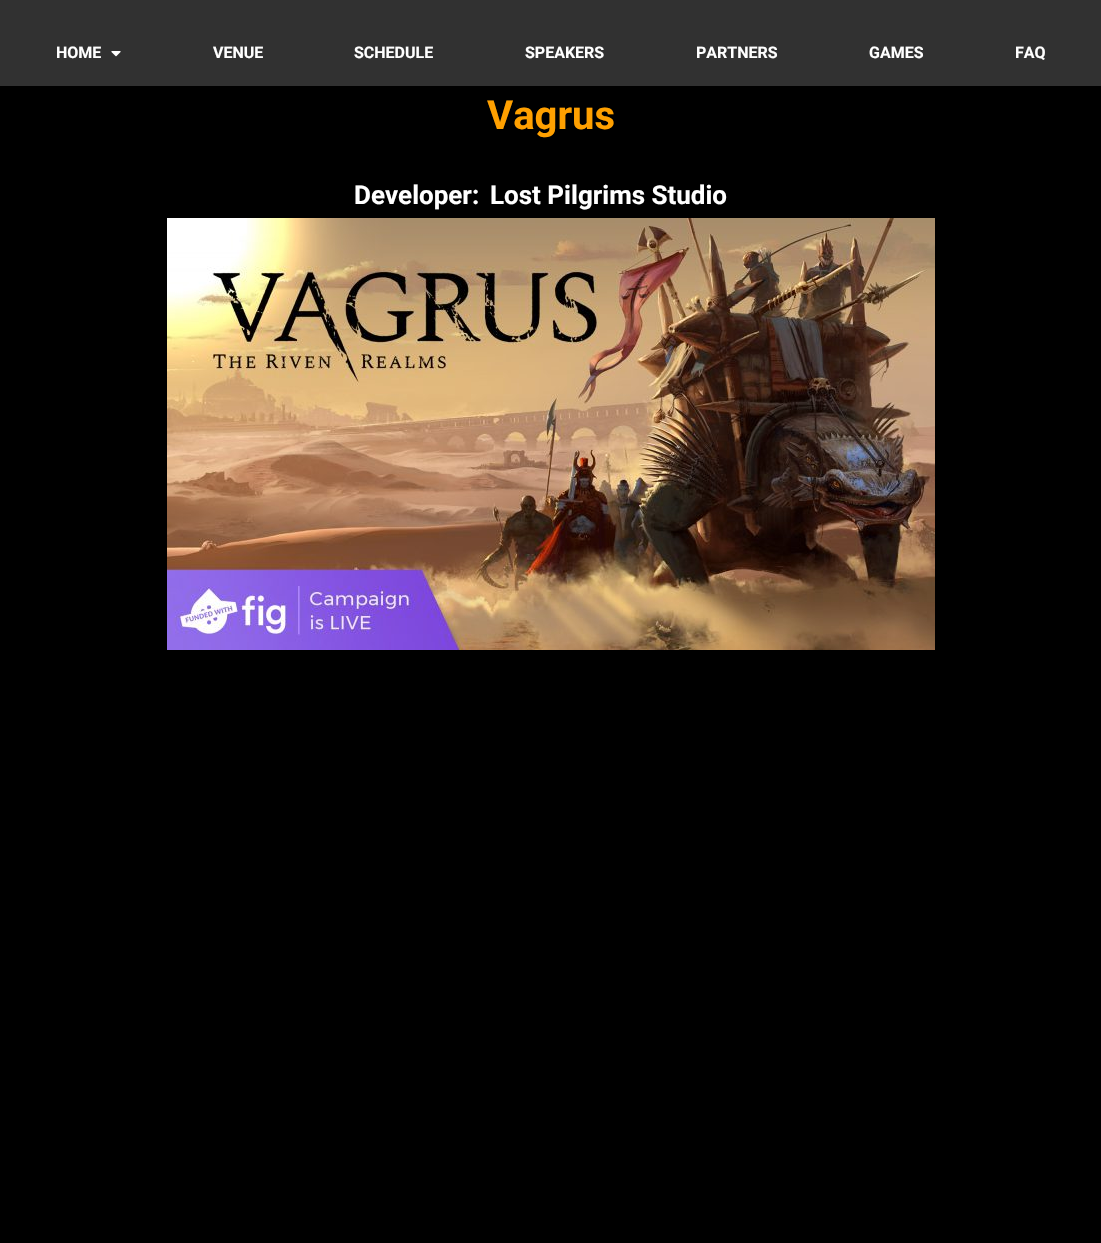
#include "include/core/SkBlurTypes.h"
#include "include/core/SkCanvas.h"
#include "include/core/SkData.h"
#include "include/core/SkFont.h"
#include "include/core/SkFontMgr.h"
#include "include/core/SkImage.h"
#include "include/core/SkMaskFilter.h"
#include "include/core/SkPaint.h"
#include "include/core/SkPathBuilder.h"
#include "include/core/SkTextBlob.h"
#include "include/effects/SkDashPathEffect.h"
#include "include/effects/SkGradientShader.h"
#include "include/utils/SkParsePath.h"

extern sk_sp<SkFontMgr> fontMgr;

void draw(SkCanvas* canvas) {
  SkPaint p;
  p.setAntiAlias(true);
  canvas->clear(SK_ColorBLACK);
  p.setColor(SkColorSetRGB(49, 49, 49));
  canvas->drawRect(SkRect::MakeLTRB(0, 0, 1101, 86), p);
  canvas->drawImageRect(SkImages::DeferredFromEncodedData(SkData::MakeFromFileName("images/1.png")), SkRect::MakeLTRB(111, 51, 121, 57), SkSamplingOptions());
  canvas->drawImageRect(SkImages::DeferredFromEncodedData(SkData::MakeFromFileName("images/2.png")), SkRect::MakeLTRB(167, 218, 935, 650), SkSamplingOptions());
  SkFont font1(fontMgr->matchFamilyStyle("Roboto", SkFontStyle::Bold()), 16);
  font1.setSubpixel(true);
  p.setColor(SK_ColorWHITE);
  canvas->drawString("HOME", 56, 58, font1, p);
  canvas->drawString("VENUE", 213, 58, font1, p);
  canvas->drawString("SCHEDULE", 354, 58, font1, p);
  canvas->drawString("SPEAKERS", 525, 58, font1, p);
  canvas->drawString("PARTNERS", 696, 58, font1, p);
  canvas->drawString("GAMES", 869, 58, font1, p);
  canvas->drawString("FAQ", 1015, 58, font1, p);
  SkFont font2(fontMgr->matchFamilyStyle("Roboto", SkFontStyle::Bold()), 40);
  font2.setSubpixel(true);
  p.setColor(SkColorSetRGB(255, 160, 0));
  canvas->drawString("Vagrus", 487, 129, font2, p);
  SkFont font3(fontMgr->matchFamilyStyle("Roboto", SkFontStyle::Bold()), 26);
  font3.setSubpixel(true);
  p.setColor(SK_ColorWHITE);
  canvas->drawString("Developer:", 354, 204, font3, p);
  canvas->drawString("Lost Pilgrims Studio", 490, 204, font3, p);
}
